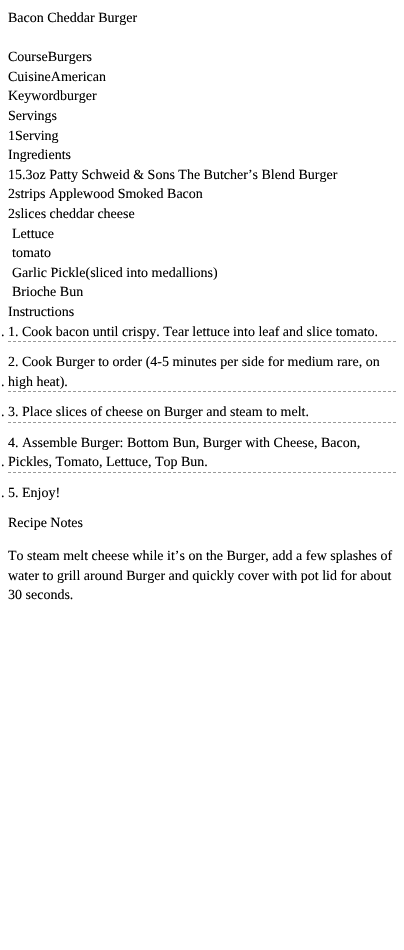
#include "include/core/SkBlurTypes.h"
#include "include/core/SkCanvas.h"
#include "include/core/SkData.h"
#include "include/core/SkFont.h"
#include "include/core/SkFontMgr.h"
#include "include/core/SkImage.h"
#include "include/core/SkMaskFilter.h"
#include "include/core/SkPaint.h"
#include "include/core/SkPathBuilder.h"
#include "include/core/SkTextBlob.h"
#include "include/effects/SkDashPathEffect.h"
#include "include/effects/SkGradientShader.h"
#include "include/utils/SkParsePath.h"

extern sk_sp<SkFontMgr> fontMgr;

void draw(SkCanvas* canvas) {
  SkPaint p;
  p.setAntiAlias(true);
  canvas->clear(SK_ColorWHITE);
  p.setStyle(SkPaint::kStroke_Style);
  p.setStrokeWidth(1);
  p.setColor(SkColorSetRGB(153, 153, 153));
  p.setPathEffect(SkDashPathEffect::Make({{3, 2}}, 0));
  canvas->drawPath(SkPathBuilder().moveTo(8, 341.5f).lineTo(396, 341.5f).detach(), p);
  p.setPathEffect(nullptr);
  p.setPathEffect(SkDashPathEffect::Make({{3, 2}}, 0));
  canvas->drawPath(SkPathBuilder().moveTo(8, 391.5f).lineTo(396, 391.5f).detach(), p);
  p.setPathEffect(nullptr);
  p.setPathEffect(SkDashPathEffect::Make({{3, 2}}, 0));
  canvas->drawPath(SkPathBuilder().moveTo(8, 422.5f).lineTo(396, 422.5f).detach(), p);
  p.setPathEffect(nullptr);
  p.setPathEffect(SkDashPathEffect::Make({{3, 2}}, 0));
  canvas->drawPath(SkPathBuilder().moveTo(8, 472.5f).lineTo(396, 472.5f).detach(), p);
  p.setPathEffect(nullptr);
  SkFont font1(fontMgr->matchFamilyStyle("Liberation Serif", SkFontStyle::Normal()), 14);
  font1.setSubpixel(true);
  p.setStyle(SkPaint::kFill_Style);
  p.setColor(SK_ColorBLACK);
  canvas->drawString("Bacon Cheddar Burger", 8, 22, font1, p);
  canvas->drawString("CourseBurgers", 8, 61, font1, p);
  canvas->drawString("CuisineAmerican", 8, 81, font1, p);
  canvas->drawString("Keywordburger", 8, 100, font1, p);
  canvas->drawString("Servings", 8, 120, font1, p);
  canvas->drawString("1Serving", 8, 140, font1, p);
  canvas->drawString("Ingredients", 8, 159, font1, p);
  canvas->drawString("15.3oz Patty Schweid & Sons The Butcher’s Blend Burger", 8, 179, font1, p);
  canvas->drawString("2strips Applewood Smoked Bacon", 8, 198, font1, p);
  canvas->drawString("2slices cheddar cheese", 8, 218, font1, p);
  canvas->drawString("Lettuce", 12, 238, font1, p);
  canvas->drawString("tomato", 12, 257, font1, p);
  canvas->drawString("Garlic Pickle(sliced into medallions)", 12, 277, font1, p);
  canvas->drawString("Brioche Bun", 12, 296, font1, p);
  canvas->drawString("Instructions", 8, 316, font1, p);
  canvas->drawString(". 1. Cook bacon until crispy. Tear lettuce into leaf and slice tomato.", 1, 336, font1, p);
  canvas->drawString("2. Cook Burger to order (4-5 minutes per side for medium rare, on", 8, 366, font1, p);
  canvas->drawString(". high heat).", 1, 386, font1, p);
  canvas->drawString(". 3. Place slices of cheese on Burger and steam to melt.", 1, 416, font1, p);
  canvas->drawString("4. Assemble Burger: Bottom Bun, Burger with Cheese, Bacon,", 8, 447, font1, p);
  canvas->drawString(". Pickles, Tomato, Lettuce, Top Bun.", 1, 466, font1, p);
  canvas->drawString(". 5. Enjoy!", 1, 497, font1, p);
  canvas->drawString("Recipe Notes", 8, 527, font1, p);
  canvas->drawString("To steam melt cheese while it’s on the Burger, add a few splashes of", 8, 560, font1, p);
  canvas->drawString("water to grill around Burger and quickly cover with pot lid for about", 8, 580, font1, p);
  canvas->drawString("30 seconds.", 8, 599, font1, p);
}
